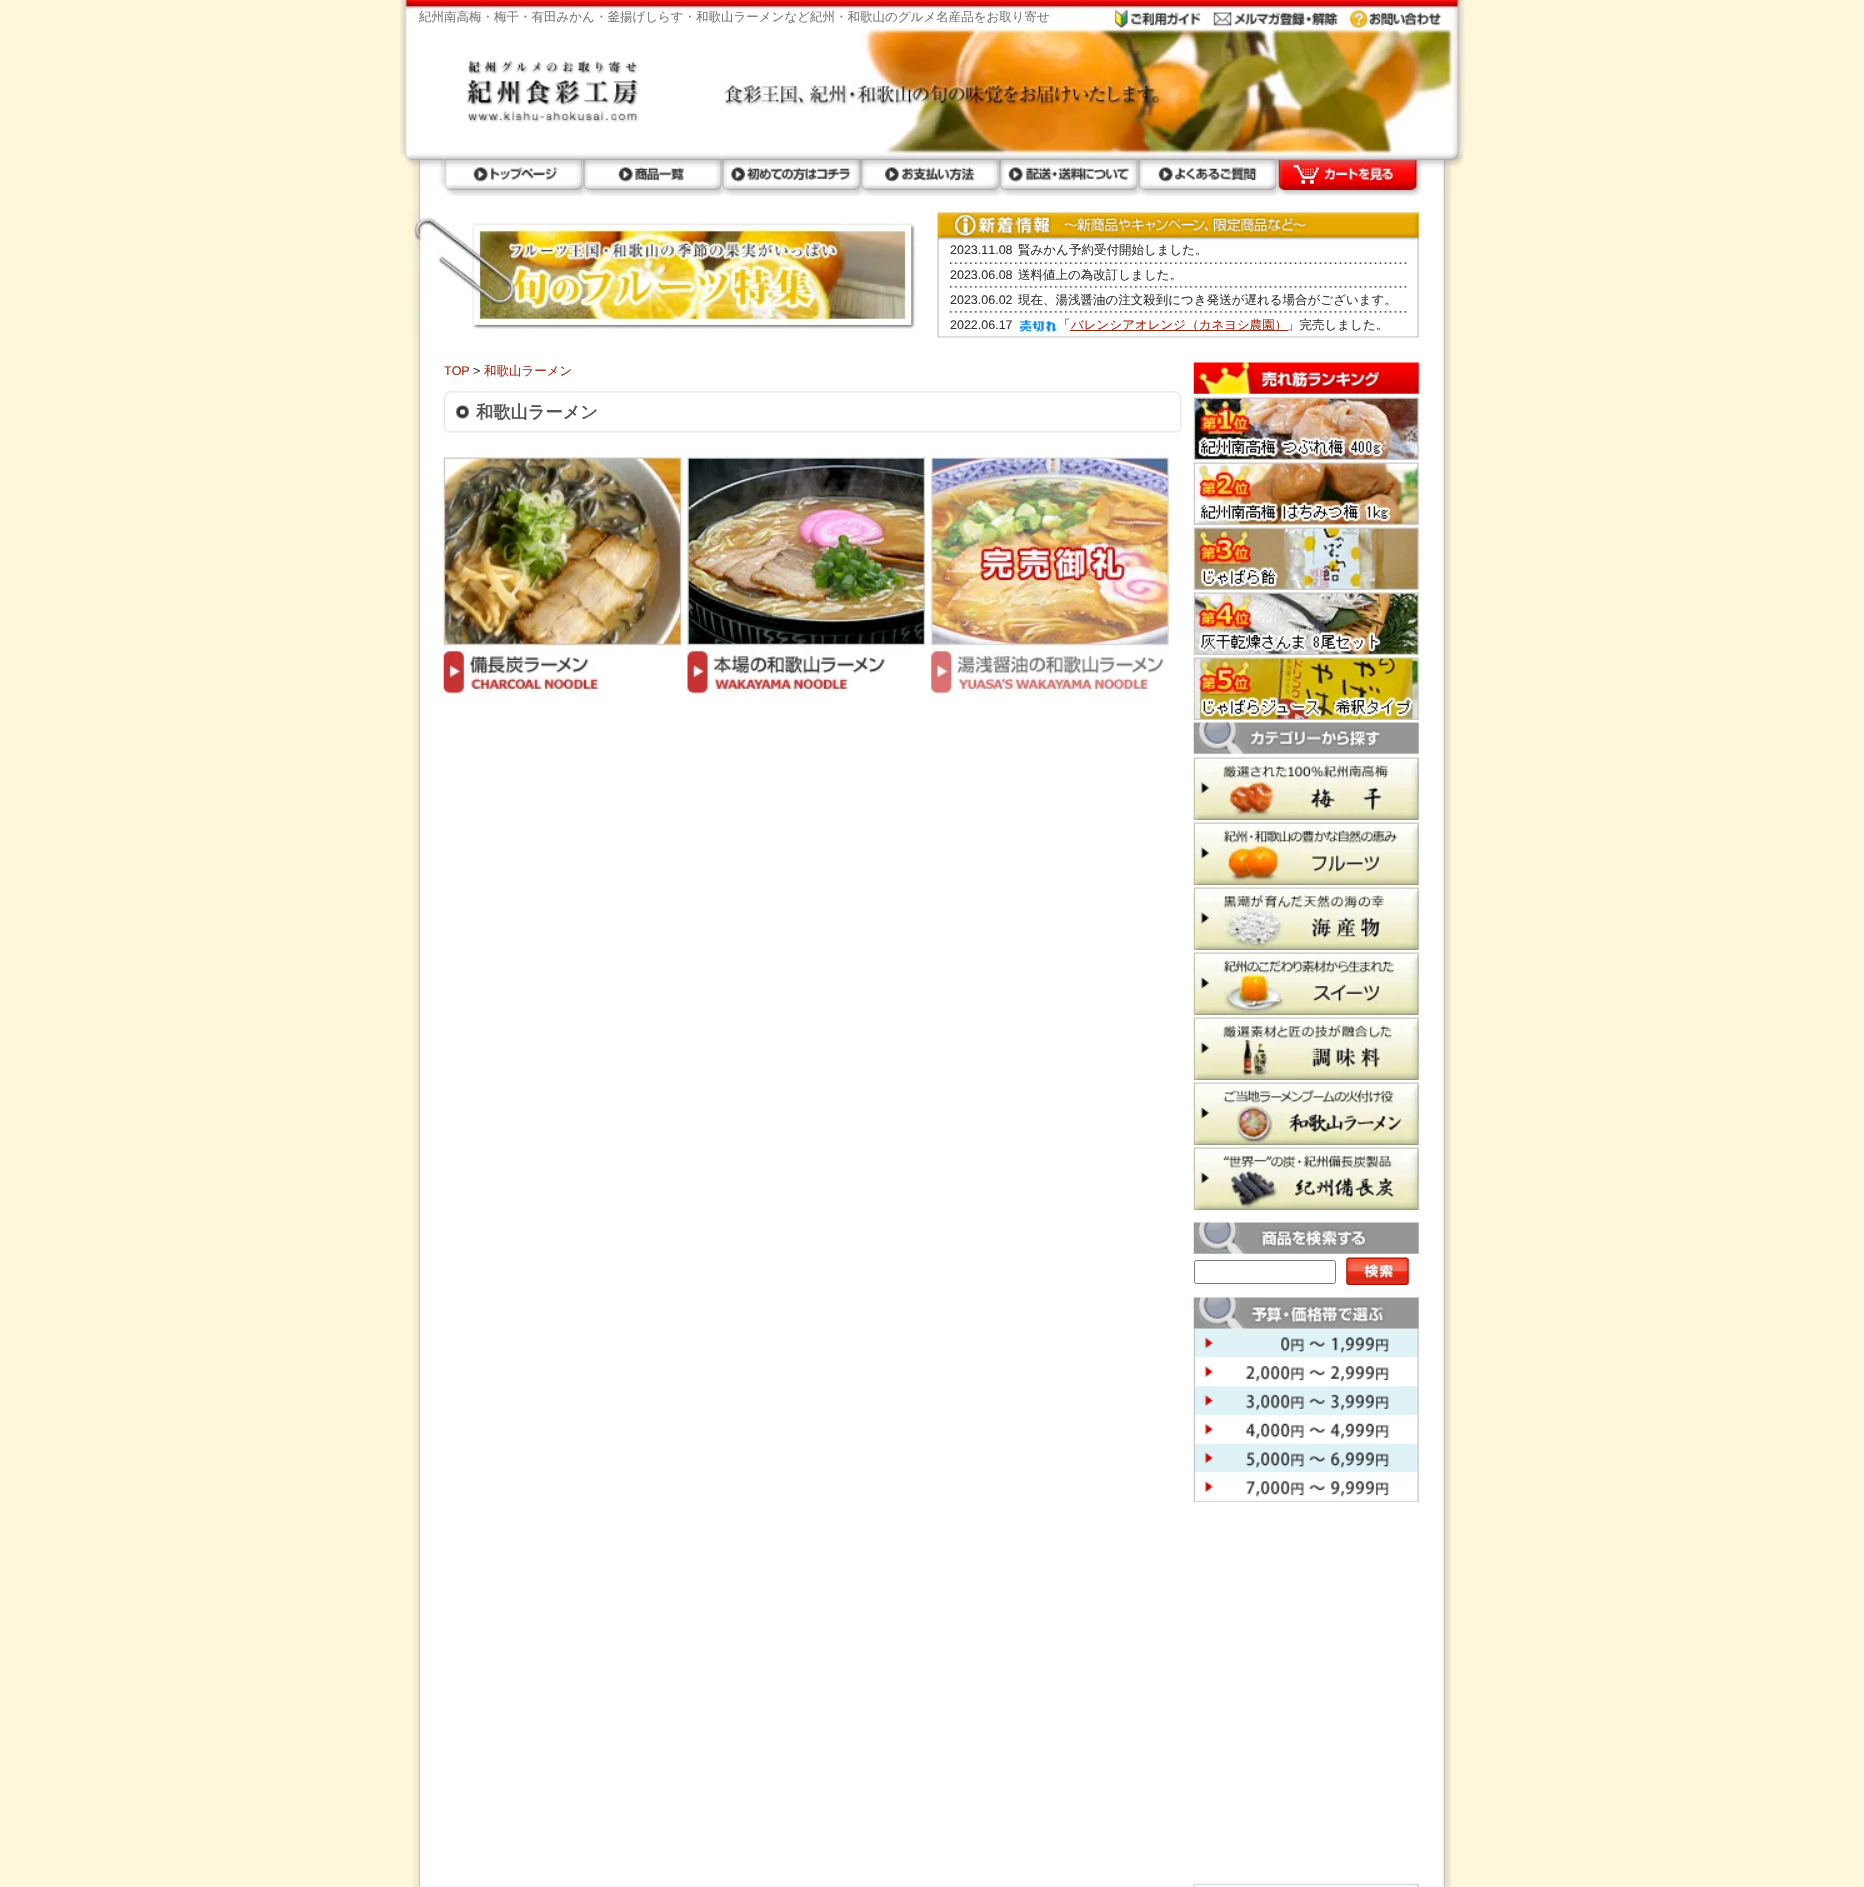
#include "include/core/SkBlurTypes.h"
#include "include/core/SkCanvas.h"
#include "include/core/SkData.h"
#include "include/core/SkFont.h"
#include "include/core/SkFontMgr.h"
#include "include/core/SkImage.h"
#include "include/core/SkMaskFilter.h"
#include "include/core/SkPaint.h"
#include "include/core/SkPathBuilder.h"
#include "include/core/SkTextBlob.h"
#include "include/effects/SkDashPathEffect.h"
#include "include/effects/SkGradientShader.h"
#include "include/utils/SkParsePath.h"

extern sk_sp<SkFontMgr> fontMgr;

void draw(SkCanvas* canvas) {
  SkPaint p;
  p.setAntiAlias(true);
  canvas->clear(SkColorSetRGB(255, 247, 220));
  canvas->drawImageRect(SkImages::DeferredFromEncodedData(SkData::MakeFromFileName("images/1.png")), SkRect::MakeLTRB(413, 153, 1451, 1887), SkSamplingOptions());
  canvas->drawImageRect(SkImages::DeferredFromEncodedData(SkData::MakeFromFileName("images/2.png")), SkRect::MakeLTRB(400, 0, 1465, 154), SkSamplingOptions());
  canvas->drawImageRect(SkImages::DeferredFromEncodedData(SkData::MakeFromFileName("images/3.png")), SkRect::MakeLTRB(1113, 8, 1204, 29), SkSamplingOptions());
  canvas->drawImageRect(SkImages::DeferredFromEncodedData(SkData::MakeFromFileName("images/4.png")), SkRect::MakeLTRB(1210, 8, 1340, 29), SkSamplingOptions());
  canvas->drawImageRect(SkImages::DeferredFromEncodedData(SkData::MakeFromFileName("images/5.png")), SkRect::MakeLTRB(1346, 8, 1445, 29), SkSamplingOptions());
  canvas->drawImageRect(SkImages::DeferredFromEncodedData(SkData::MakeFromFileName("images/6.png")), SkRect::MakeLTRB(467, 61, 639, 123), SkSamplingOptions());
  canvas->drawImageRect(SkImages::DeferredFromEncodedData(SkData::MakeFromFileName("images/7.png")), SkRect::MakeLTRB(400, 154, 444, 188), SkSamplingOptions());
  canvas->drawImageRect(SkImages::DeferredFromEncodedData(SkData::MakeFromFileName("images/8.png")), SkRect::MakeLTRB(443, 154, 583, 196), SkSamplingOptions());
  canvas->drawImageRect(SkImages::DeferredFromEncodedData(SkData::MakeFromFileName("images/9.png")), SkRect::MakeLTRB(582, 154, 722, 196), SkSamplingOptions());
  canvas->drawImageRect(SkImages::DeferredFromEncodedData(SkData::MakeFromFileName("images/10.png")), SkRect::MakeLTRB(721, 154, 860, 196), SkSamplingOptions());
  canvas->drawImageRect(SkImages::DeferredFromEncodedData(SkData::MakeFromFileName("images/11.png")), SkRect::MakeLTRB(860, 153, 999, 196), SkSamplingOptions());
  canvas->drawImageRect(SkImages::DeferredFromEncodedData(SkData::MakeFromFileName("images/12.png")), SkRect::MakeLTRB(998, 153, 1138, 196), SkSamplingOptions());
  canvas->drawImageRect(SkImages::DeferredFromEncodedData(SkData::MakeFromFileName("images/13.png")), SkRect::MakeLTRB(1137, 153, 1277, 196), SkSamplingOptions());
  canvas->drawImageRect(SkImages::DeferredFromEncodedData(SkData::MakeFromFileName("images/14.png")), SkRect::MakeLTRB(1276, 153, 1419, 196), SkSamplingOptions());
  canvas->drawImageRect(SkImages::DeferredFromEncodedData(SkData::MakeFromFileName("images/15.png")), SkRect::MakeLTRB(1418, 153, 1464, 196), SkSamplingOptions());
  canvas->drawImageRect(SkImages::DeferredFromEncodedData(SkData::MakeFromFileName("images/16.png")), SkRect::MakeLTRB(408, 212, 916, 338), SkSamplingOptions());
  canvas->drawImageRect(SkImages::DeferredFromEncodedData(SkData::MakeFromFileName("images/17.png")), SkRect::MakeLTRB(937, 212, 1419, 338), SkSamplingOptions());
  canvas->drawImageRect(SkImages::DeferredFromEncodedData(SkData::MakeFromFileName("images/18.png")), SkRect::MakeLTRB(1019, 319, 1057, 332), SkSamplingOptions());
  p.setColor(SkColorSetRGB(162, 39, 15));
  canvas->drawRect(SkRect::MakeLTRB(1070, 330, 1288, 331), p);
  canvas->drawImageRect(SkImages::DeferredFromEncodedData(SkData::MakeFromFileName("images/20.png")), SkRect::MakeLTRB(443, 397, 1182, 427), SkSamplingOptions());
  canvas->drawImageRect(SkImages::DeferredFromEncodedData(SkData::MakeFromFileName("images/19.png")), SkRect::MakeLTRB(443, 391, 1182, 398), SkSamplingOptions());
  canvas->drawImageRect(SkImages::DeferredFromEncodedData(SkData::MakeFromFileName("images/21.png")), SkRect::MakeLTRB(443, 426, 1182, 433), SkSamplingOptions());
  canvas->drawImageRect(SkImages::DeferredFromEncodedData(SkData::MakeFromFileName("images/22.png")), SkRect::MakeLTRB(443, 457, 682, 695), SkSamplingOptions());
  canvas->drawImageRect(SkImages::DeferredFromEncodedData(SkData::MakeFromFileName("images/23.png")), SkRect::MakeLTRB(687, 457, 925, 695), SkSamplingOptions());
  canvas->drawImageRect(SkImages::DeferredFromEncodedData(SkData::MakeFromFileName("images/24.png")), SkRect::MakeLTRB(931, 457, 1169, 695), SkSamplingOptions());
  canvas->drawImageRect(SkImages::DeferredFromEncodedData(SkData::MakeFromFileName("images/25.png")), SkRect::MakeLTRB(1193, 362, 1419, 394), SkSamplingOptions());
  canvas->drawImageRect(SkImages::DeferredFromEncodedData(SkData::MakeFromFileName("images/26.png")), SkRect::MakeLTRB(1193, 397, 1419, 460), SkSamplingOptions());
  canvas->drawImageRect(SkImages::DeferredFromEncodedData(SkData::MakeFromFileName("images/27.png")), SkRect::MakeLTRB(1193, 462, 1419, 525), SkSamplingOptions());
  canvas->drawImageRect(SkImages::DeferredFromEncodedData(SkData::MakeFromFileName("images/28.png")), SkRect::MakeLTRB(1193, 527, 1419, 590), SkSamplingOptions());
  canvas->drawImageRect(SkImages::DeferredFromEncodedData(SkData::MakeFromFileName("images/29.png")), SkRect::MakeLTRB(1193, 592, 1419, 655), SkSamplingOptions());
  canvas->drawImageRect(SkImages::DeferredFromEncodedData(SkData::MakeFromFileName("images/30.png")), SkRect::MakeLTRB(1193, 657, 1419, 720), SkSamplingOptions());
  canvas->drawImageRect(SkImages::DeferredFromEncodedData(SkData::MakeFromFileName("images/31.png")), SkRect::MakeLTRB(1193, 722, 1419, 754), SkSamplingOptions());
  canvas->drawImageRect(SkImages::DeferredFromEncodedData(SkData::MakeFromFileName("images/32.png")), SkRect::MakeLTRB(1193, 757, 1419, 820), SkSamplingOptions());
  canvas->drawImageRect(SkImages::DeferredFromEncodedData(SkData::MakeFromFileName("images/33.png")), SkRect::MakeLTRB(1193, 822, 1419, 885), SkSamplingOptions());
  canvas->drawImageRect(SkImages::DeferredFromEncodedData(SkData::MakeFromFileName("images/34.png")), SkRect::MakeLTRB(1193, 887, 1419, 950), SkSamplingOptions());
  canvas->drawImageRect(SkImages::DeferredFromEncodedData(SkData::MakeFromFileName("images/35.png")), SkRect::MakeLTRB(1193, 952, 1419, 1015), SkSamplingOptions());
  canvas->drawImageRect(SkImages::DeferredFromEncodedData(SkData::MakeFromFileName("images/36.png")), SkRect::MakeLTRB(1193, 1017, 1419, 1080), SkSamplingOptions());
  canvas->drawImageRect(SkImages::DeferredFromEncodedData(SkData::MakeFromFileName("images/37.png")), SkRect::MakeLTRB(1193, 1082, 1419, 1145), SkSamplingOptions());
  canvas->drawImageRect(SkImages::DeferredFromEncodedData(SkData::MakeFromFileName("images/38.png")), SkRect::MakeLTRB(1193, 1147, 1419, 1210), SkSamplingOptions());
  canvas->drawImageRect(SkImages::DeferredFromEncodedData(SkData::MakeFromFileName("images/39.png")), SkRect::MakeLTRB(1193, 1222, 1419, 1254), SkSamplingOptions());
  p.setStyle(SkPaint::kStroke_Style);
  p.setStrokeWidth(1);
  p.setColor(SkColorSetRGB(118, 118, 118));
  canvas->drawRoundRect(SkRect::MakeLTRB(1194.5f, 1260.5f, 1335.5f, 1283.5f), 2, 2, p);
  canvas->drawImageRect(SkImages::DeferredFromEncodedData(SkData::MakeFromFileName("images/40.png")), SkRect::MakeLTRB(1346, 1257, 1409, 1285), SkSamplingOptions());
  canvas->drawImageRect(SkImages::DeferredFromEncodedData(SkData::MakeFromFileName("images/41.png")), SkRect::MakeLTRB(1193, 1297, 1419, 1329), SkSamplingOptions());
  p.setStyle(SkPaint::kFill_Style);
  p.setColor(SkColorSetRGB(200, 200, 200));
  canvas->drawRect(SkRect::MakeLTRB(1194, 1501, 1419, 1502), p);
  canvas->drawImageRect(SkImages::DeferredFromEncodedData(SkData::MakeFromFileName("images/42.png")), SkRect::MakeLTRB(1193, 1328, 1419, 1358), SkSamplingOptions());
  canvas->drawImageRect(SkImages::DeferredFromEncodedData(SkData::MakeFromFileName("images/43.png")), SkRect::MakeLTRB(1193, 1357, 1419, 1387), SkSamplingOptions());
  canvas->drawImageRect(SkImages::DeferredFromEncodedData(SkData::MakeFromFileName("images/44.png")), SkRect::MakeLTRB(1193, 1386, 1419, 1415), SkSamplingOptions());
  canvas->drawImageRect(SkImages::DeferredFromEncodedData(SkData::MakeFromFileName("images/45.png")), SkRect::MakeLTRB(1193, 1415, 1419, 1444), SkSamplingOptions());
  canvas->drawImageRect(SkImages::DeferredFromEncodedData(SkData::MakeFromFileName("images/46.png")), SkRect::MakeLTRB(1193, 1443, 1419, 1473), SkSamplingOptions());
  canvas->drawImageRect(SkImages::DeferredFromEncodedData(SkData::MakeFromFileName("images/47.png")), SkRect::MakeLTRB(1193, 1472, 1419, 1502), SkSamplingOptions());
  canvas->drawImageRect(SkImages::DeferredFromEncodedData(SkData::MakeFromFileName("images/48.png")), SkRect::MakeLTRB(1193, 1883, 1419, 1887), SkSamplingOptions());
  SkFont font1(fontMgr->matchFamilyStyle("WenQuanYi Zen Hei", SkFontStyle(500, SkFontStyle::kNormal_Width, SkFontStyle::kUpright_Slant)), 12.5f);
  font1.setSubpixel(true);
  p.setColor(SkColorSetRGB(119, 119, 119));
  canvas->drawString("紀州南高梅・梅干・有田みかん・釜揚げしらす・和歌山ラーメンなど紀州・和歌山のグルメ名産品をお取り寄せ", 419, 21, font1, p);
  SkFont font2(fontMgr->matchFamilyStyle("Liberation Sans", SkFontStyle::Normal()), 12.5f);
  font2.setSubpixel(true);
  p.setColor(SkColorSetRGB(51, 51, 51));
  canvas->drawString("2023.11.08", 950, 254, font2, p);
  canvas->drawString("賢みかん予約受付開始しました。", 1018, 254, font1, p);
  canvas->drawString("2023.06.08", 950, 279, font2, p);
  canvas->drawString("送料値上の為改訂しました。", 1018, 279, font1, p);
  canvas->drawString("2023.06.02", 950, 304, font2, p);
  canvas->drawString("現在、湯浅醤油の注文殺到につき発送が遅れる場合がございます。", 1018, 304, font1, p);
  canvas->drawString("2022.06.17", 950, 329, font2, p);
  canvas->drawString("「", 1058, 329, font1, p);
  p.setColor(SkColorSetRGB(162, 39, 15));
  canvas->drawString("バレンシアオレンジ（カネヨシ農園）", 1071, 329, font1, p);
  p.setColor(SkColorSetRGB(51, 51, 51));
  canvas->drawString("」完売しました。", 1287, 329, font1, p);
  p.setColor(SkColorSetRGB(162, 39, 15));
  canvas->drawString("TOP", 444, 375, font2, p);
  p.setColor(SkColorSetRGB(51, 51, 51));
  canvas->drawString(">", 473, 375, font2, p);
  p.setColor(SkColorSetRGB(162, 39, 15));
  canvas->drawString("和歌山ラーメン", 484, 375, font1, p);
  SkFont font3(fontMgr->matchFamilyStyle("WenQuanYi Zen Hei", SkFontStyle::Bold()), 17.25f);
  font3.setSubpixel(true);
  p.setColor(SkColorSetRGB(85, 85, 85));
  canvas->drawString("和歌山ラーメン", 476, 418, font3, p);
}
